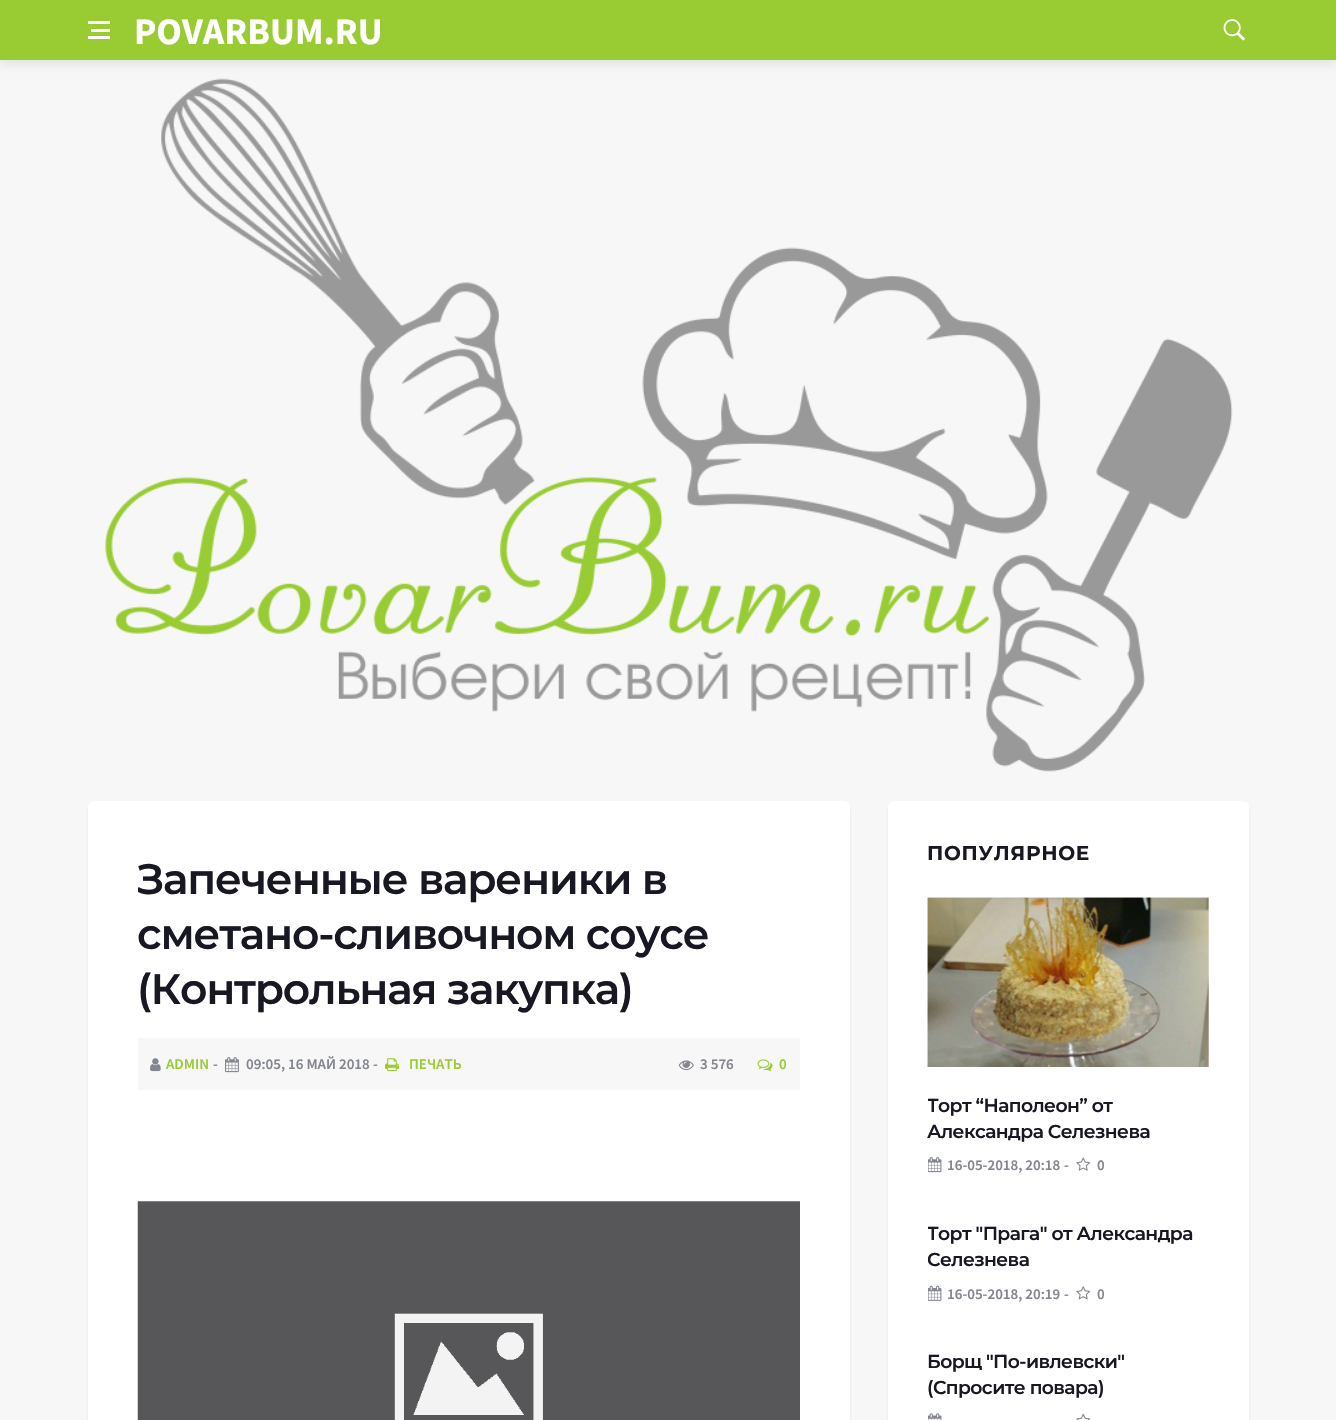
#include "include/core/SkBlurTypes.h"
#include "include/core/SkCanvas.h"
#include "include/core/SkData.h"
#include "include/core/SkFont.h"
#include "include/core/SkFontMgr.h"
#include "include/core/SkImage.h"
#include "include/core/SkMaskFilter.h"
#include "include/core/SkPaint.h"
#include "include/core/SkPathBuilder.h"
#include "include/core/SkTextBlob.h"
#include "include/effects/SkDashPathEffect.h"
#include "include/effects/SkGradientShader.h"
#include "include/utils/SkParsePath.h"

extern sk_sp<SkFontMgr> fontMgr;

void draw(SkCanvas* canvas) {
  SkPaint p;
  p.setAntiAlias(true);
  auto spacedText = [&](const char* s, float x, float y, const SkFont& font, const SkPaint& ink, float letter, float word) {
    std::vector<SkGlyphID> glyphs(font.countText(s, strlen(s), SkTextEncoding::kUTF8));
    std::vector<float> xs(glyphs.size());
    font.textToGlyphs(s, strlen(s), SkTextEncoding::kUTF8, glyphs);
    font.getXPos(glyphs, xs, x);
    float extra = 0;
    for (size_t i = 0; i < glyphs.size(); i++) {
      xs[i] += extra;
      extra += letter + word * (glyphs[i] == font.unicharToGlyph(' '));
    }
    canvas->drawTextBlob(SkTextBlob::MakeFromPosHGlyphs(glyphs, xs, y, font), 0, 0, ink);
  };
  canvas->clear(SkColorSetRGB(247, 247, 247));
  canvas->drawImageRect(SkImages::DeferredFromEncodedData(SkData::MakeFromFileName("images/2.png")), SkRect::MakeLTRB(105, 78, 1233, 772), SkSamplingOptions());
  p.setColor(SkColorSetARGB(26, 0, 0, 0));
  p.setMaskFilter(SkMaskFilter::MakeBlur(kNormal_SkBlurStyle, 6));
  canvas->drawRect(SkRect::MakeLTRB(0, 3, 1336, 63), p);
  p.setMaskFilter(nullptr);
  p.setColor(SkColorSetRGB(153, 204, 51));
  canvas->drawRect(SkRect::MakeLTRB(0, 0, 1336, 60), p);
  p.setColor(SK_ColorWHITE);
  canvas->drawRect(SkRect::MakeLTRB(91, 29, 110, 32), p);
  canvas->drawRect(SkRect::MakeLTRB(88, 21, 110, 24), p);
  canvas->drawRect(SkRect::MakeLTRB(88, 36, 110, 39), p);
  canvas->drawImageRect(SkImages::DeferredFromEncodedData(SkData::MakeFromFileName("images/1.png")), SkRect::MakeLTRB(1223, 19, 1246, 41), SkSamplingOptions());
  p.setColor(SkColorSetARGB(26, 0, 0, 0));
  p.setMaskFilter(SkMaskFilter::MakeBlur(kNormal_SkBlurStyle, 1));
  canvas->drawRoundRect(SkRect::MakeLTRB(88, 805, 850, 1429), 6, 6, p);
  p.setMaskFilter(nullptr);
  p.setColor(SK_ColorWHITE);
  canvas->drawRoundRect(SkRect::MakeLTRB(88, 801, 850, 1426), 6, 6, p);
  p.setColor(SkColorSetRGB(247, 247, 247));
  canvas->drawRect(SkRect::MakeLTRB(138, 1038, 800, 1090), p);
  canvas->drawImageRect(SkImages::DeferredFromEncodedData(SkData::MakeFromFileName("images/3.png")), SkRect::MakeLTRB(150, 1058, 161, 1072), SkSamplingOptions());
  canvas->drawImageRect(SkImages::DeferredFromEncodedData(SkData::MakeFromFileName("images/4.png")), SkRect::MakeLTRB(225, 1057, 239, 1073), SkSamplingOptions());
  canvas->drawImageRect(SkImages::DeferredFromEncodedData(SkData::MakeFromFileName("images/5.png")), SkRect::MakeLTRB(385, 1058, 399, 1072), SkSamplingOptions());
  canvas->drawImageRect(SkImages::DeferredFromEncodedData(SkData::MakeFromFileName("images/6.png")), SkRect::MakeLTRB(678, 1060, 694, 1071), SkSamplingOptions());
  canvas->drawImageRect(SkImages::DeferredFromEncodedData(SkData::MakeFromFileName("images/7.png")), SkRect::MakeLTRB(757, 1059, 773, 1072), SkSamplingOptions());
  canvas->drawImageRect(SkImages::DeferredFromEncodedData(SkData::MakeFromFileName("images/8.png")), SkRect::MakeLTRB(137, 1201, 800, 1420), SkSamplingOptions());
  p.setColor(SkColorSetARGB(26, 0, 0, 0));
  p.setMaskFilter(SkMaskFilter::MakeBlur(kNormal_SkBlurStyle, 1));
  canvas->drawRoundRect(SkRect::MakeLTRB(888, 805, 1249, 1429), 6, 6, p);
  p.setMaskFilter(nullptr);
  p.setColor(SK_ColorWHITE);
  canvas->drawRoundRect(SkRect::MakeLTRB(888, 801, 1249, 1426), 6, 6, p);
  p.setColor(SkColorSetRGB(247, 247, 247));
  canvas->drawRect(SkRect::MakeLTRB(1208, 898, 1209, 1066), p);
  canvas->drawImageRect(SkImages::DeferredFromEncodedData(SkData::MakeFromFileName("images/9.png")), SkRect::MakeLTRB(927, 897, 1209, 1067), SkSamplingOptions());
  canvas->drawImageRect(SkImages::DeferredFromEncodedData(SkData::MakeFromFileName("images/10.png")), SkRect::MakeLTRB(928, 1157, 942, 1173), SkSamplingOptions());
  canvas->drawImageRect(SkImages::DeferredFromEncodedData(SkData::MakeFromFileName("images/11.png")), SkRect::MakeLTRB(1076, 1157, 1091, 1171), SkSamplingOptions());
  canvas->drawImageRect(SkImages::DeferredFromEncodedData(SkData::MakeFromFileName("images/12.png")), SkRect::MakeLTRB(928, 1285, 942, 1301), SkSamplingOptions());
  canvas->drawImageRect(SkImages::DeferredFromEncodedData(SkData::MakeFromFileName("images/13.png")), SkRect::MakeLTRB(1076, 1286, 1091, 1300), SkSamplingOptions());
  canvas->drawImageRect(SkImages::DeferredFromEncodedData(SkData::MakeFromFileName("images/14.png")), SkRect::MakeLTRB(928, 1413, 942, 1420), SkSamplingOptions());
  canvas->drawImageRect(SkImages::DeferredFromEncodedData(SkData::MakeFromFileName("images/15.png")), SkRect::MakeLTRB(1076, 1413, 1091, 1420), SkSamplingOptions());
  SkFont font1(fontMgr->matchFamilyStyle("Source Sans Pro", SkFontStyle::Bold()), 37.5f);
  font1.setSubpixel(true);
  p.setColor(SK_ColorWHITE);
  canvas->drawString("POVARBUM.RU", 134, 44, font1, p);
  canvas->save();
  canvas->clipRect(SkRect::MakeLTRB(138, 851, 800, 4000));
  SkFont font2(fontMgr->matchFamilyStyle("Montserrat", SkFontStyle(600, SkFontStyle::kNormal_Width, SkFontStyle::kUpright_Slant)), 42.5f);
  font2.setSubpixel(true);
  p.setColor(SkColorSetRGB(23, 24, 33));
  spacedText("Запеченные вареники в", 137, 894, font2, p, -1.25f, 0);
  canvas->restore();
  spacedText("сметано-сливочном соусе", 137, 949, font2, p, -1.25f, 0);
  spacedText("(Контрольная закупка)", 137, 1004, font2, p, -1.25f, 0);
  SkFont font3(fontMgr->matchFamilyStyle("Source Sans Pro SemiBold", SkFontStyle(600, SkFontStyle::kNormal_Width, SkFontStyle::kUpright_Slant)), 15);
  font3.setSubpixel(true);
  p.setColor(SkColorSetRGB(153, 204, 51));
  canvas->drawString("ADMIN", 166, 1069, font3, p);
  p.setColor(SkColorSetRGB(131, 133, 143));
  canvas->drawString("-", 213, 1069, font3, p);
  canvas->drawString("09:05, 16 МАЙ 2018", 246, 1069, font3, p);
  canvas->drawString("-", 373, 1069, font3, p);
  p.setColor(SkColorSetRGB(153, 204, 51));
  canvas->drawString("ПЕЧАТЬ", 409, 1069, font3, p);
  p.setColor(SkColorSetRGB(131, 133, 143));
  canvas->drawString("3 576", 700, 1069, font3, p);
  p.setColor(SkColorSetRGB(153, 204, 51));
  canvas->drawString("0", 779, 1069, font3, p);
  SkFont font4(fontMgr->matchFamilyStyle("Montserrat", SkFontStyle::Bold()), 20);
  font4.setSubpixel(true);
  p.setColor(SkColorSetRGB(23, 24, 33));
  spacedText("ПОПУЛЯРНОЕ", 927, 860, font4, p, 0.75f, 0);
  canvas->save();
  canvas->clipRect(SkRect::MakeLTRB(928, 898, 1209, 1179));
  SkFont font5(fontMgr->matchFamilyStyle("Montserrat", SkFontStyle(600, SkFontStyle::kNormal_Width, SkFontStyle::kUpright_Slant)), 18.75f);
  font5.setSubpixel(true);
  spacedText("Торт “Наполеон” от", 927, 1112, font5, p, -0.6f, 0);
  canvas->restore();
  spacedText("Александра Селезнева", 927, 1138, font5, p, -0.6f, 0);
  p.setColor(SkColorSetRGB(131, 133, 143));
  canvas->drawString("16-05-2018, 20:18", 947, 1170, font3, p);
  canvas->drawString("-", 1064, 1170, font3, p);
  canvas->drawString("0", 1097, 1170, font3, p);
  canvas->save();
  canvas->clipRect(SkRect::MakeLTRB(928, 1216, 1209, 1306));
  p.setColor(SkColorSetRGB(23, 24, 33));
  spacedText("Торт \"Прага\" от Александра", 927, 1240, font5, p, -0.6f, 0);
  spacedText("Селезнева", 927, 1266, font5, p, -0.6f, 0);
  canvas->restore();
  p.setColor(SkColorSetRGB(131, 133, 143));
  canvas->drawString("16-05-2018, 20:19", 947, 1299, font3, p);
  canvas->drawString("-", 1064, 1299, font3, p);
  canvas->drawString("0", 1097, 1299, font3, p);
  p.setColor(SkColorSetRGB(23, 24, 33));
  spacedText("Борщ \"По-ивлевски\"", 927, 1368, font5, p, -0.6f, 0);
  spacedText("(Спросите повара)", 927, 1394, font5, p, -0.6f, 0);
}
